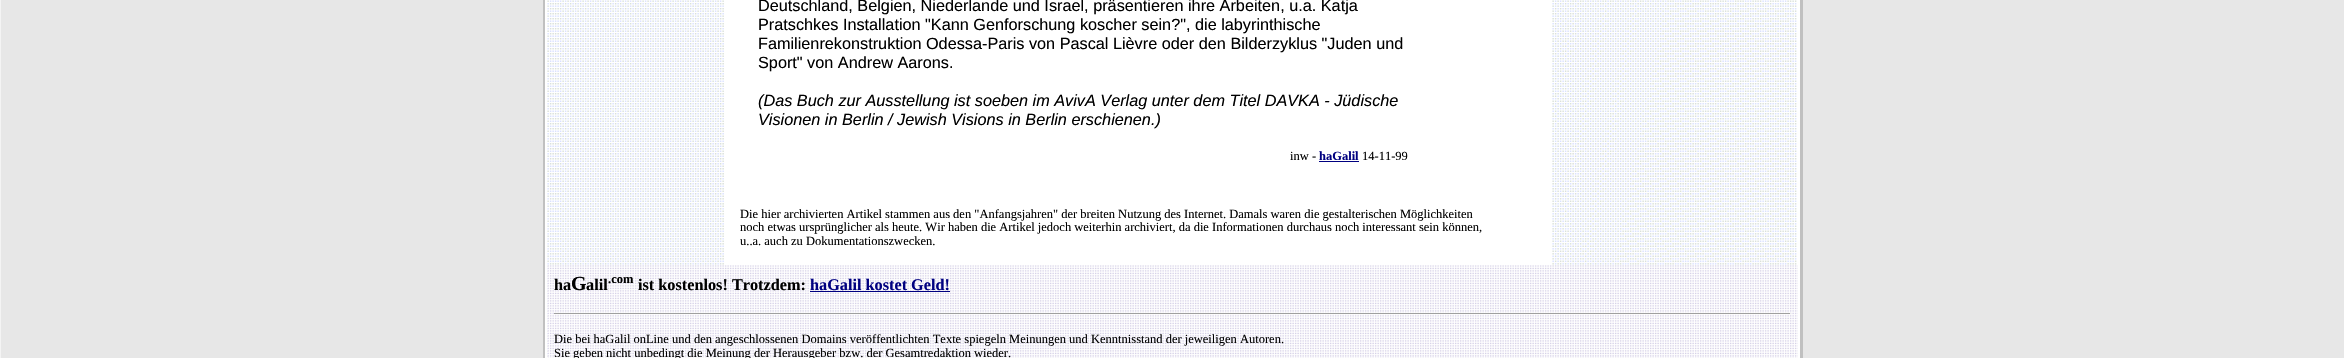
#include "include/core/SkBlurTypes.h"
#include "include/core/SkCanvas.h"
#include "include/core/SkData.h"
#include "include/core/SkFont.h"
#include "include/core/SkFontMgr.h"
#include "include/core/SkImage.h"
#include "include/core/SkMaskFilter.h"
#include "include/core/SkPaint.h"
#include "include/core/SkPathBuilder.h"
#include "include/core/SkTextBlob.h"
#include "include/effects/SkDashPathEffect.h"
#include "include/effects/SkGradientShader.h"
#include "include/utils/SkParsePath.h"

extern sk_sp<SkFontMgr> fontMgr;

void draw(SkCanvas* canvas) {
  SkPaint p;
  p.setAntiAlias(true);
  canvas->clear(SkColorSetRGB(231, 231, 231));
  p.setStyle(SkPaint::kStroke_Style);
  p.setStrokeWidth(1);
  p.setColor(SkColorSetRGB(244, 244, 244));
  canvas->drawRect(SkRect::MakeLTRB(0.5f, -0.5f, 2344.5f, 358.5f), p);
  p.setStyle(SkPaint::kFill_Style);
  p.setColor(SkColorSetRGB(192, 192, 192));
  canvas->drawRect(SkRect::MakeLTRB(543, 0, 1803, 358), p);
  p.setColor(SK_ColorWHITE);
  canvas->drawRect(SkRect::MakeLTRB(545, 0, 1800, 358), p);
  canvas->drawImageRect(SkImages::DeferredFromEncodedData(SkData::MakeFromFileName("images/1.png")), SkRect::MakeLTRB(547, 0, 1797, 357), SkSamplingOptions());
  p.setColor(SkColorSetRGB(0, 0, 128));
  canvas->drawRect(SkRect::MakeLTRB(1319, 161, 1359, 162), p);
  canvas->drawImageRect(SkImages::DeferredFromEncodedData(SkData::MakeFromFileName("images/2.png")), SkRect::MakeLTRB(547, 265, 1798, 358), SkSamplingOptions());
  canvas->drawRect(SkRect::MakeLTRB(810, 291, 950, 292), p);
  p.setColor(SkColorSetRGB(159, 159, 159));
  canvas->drawRect(SkRect::MakeLTRB(554, 313, 1791, 314), p);
  p.setColor(SkColorSetRGB(238, 238, 238));
  canvas->drawRect(SkRect::MakeLTRB(1790, 313, 1791, 314), p);
  SkFont font1(fontMgr->matchFamilyStyle("Liberation Sans", SkFontStyle::Normal()), 16.25f);
  font1.setSubpixel(true);
  p.setColor(SK_ColorBLACK);
  canvas->drawString("Deutschland, Belgien, Niederlande und Israel, präsentieren ihre Arbeiten, u.a. Katja", 758, 11, font1, p);
  canvas->drawString("Pratschkes Installation \"Kann Genforschung koscher sein?\", die labyrinthische", 758, 30, font1, p);
  canvas->drawString("Familienrekonstruktion Odessa-Paris von Pascal Lièvre oder den Bilderzyklus \"Juden und", 758, 49, font1, p);
  canvas->drawString("Sport\" von Andrew Aarons.", 758, 68, font1, p);
  SkFont font2(fontMgr->matchFamilyStyle("Liberation Sans", SkFontStyle::Italic()), 16.25f);
  font2.setSubpixel(true);
  canvas->drawString("(Das Buch zur Ausstellung ist soeben im AvivA Verlag unter dem Titel DAVKA - Jüdische", 758, 106, font2, p);
  canvas->drawString("Visionen in Berlin / Jewish Visions in Berlin erschienen.)", 758, 125, font2, p);
  SkFont font3(fontMgr->matchFamilyStyle("Liberation Serif", SkFontStyle::Normal()), 12.5f);
  font3.setSubpixel(true);
  canvas->drawString("inw -", 1290, 160, font3, p);
  SkFont font4(fontMgr->matchFamilyStyle("Liberation Serif", SkFontStyle::Bold()), 12.5f);
  font4.setSubpixel(true);
  p.setColor(SkColorSetRGB(0, 0, 128));
  canvas->drawString("haGalil", 1319, 160, font4, p);
  p.setColor(SK_ColorBLACK);
  canvas->drawString("14-11-99", 1362, 160, font3, p);
  canvas->drawString("Die hier archivierten Artikel stammen aus den \"Anfangsjahren\" der breiten Nutzung des Internet. Damals waren die gestalterischen Möglichkeiten", 740, 218, font3, p);
  canvas->drawString("noch etwas ursprünglicher als heute. Wir haben die Artikel jedoch weiterhin archiviert, da die Informationen durchaus noch interessant sein können,", 740, 231, font3, p);
  canvas->drawString("u..a. auch zu Dokumentationszwecken.", 740, 245, font3, p);
  SkFont font5(fontMgr->matchFamilyStyle("Liberation Serif", SkFontStyle::Bold()), 16.25f);
  font5.setSubpixel(true);
  canvas->drawString("ha", 554, 290, font5, p);
  SkFont font6(fontMgr->matchFamilyStyle("Liberation Serif", SkFontStyle::Bold()), 20);
  font6.setSubpixel(true);
  canvas->drawString("G", 571, 290, font6, p);
  canvas->drawString("alil", 586, 290, font5, p);
  canvas->drawString(".com", 608, 283, font4, p);
  canvas->drawString("ist kostenlos! Trotzdem:", 638, 290, font5, p);
  p.setColor(SkColorSetRGB(0, 0, 128));
  canvas->drawString("haGalil kostet Geld!", 810, 290, font5, p);
  p.setColor(SK_ColorBLACK);
  canvas->drawString("Die bei haGalil onLine und den angeschlossenen Domains veröffentlichten Texte spiegeln Meinungen und Kenntnisstand der jeweiligen Autoren.", 554, 343, font3, p);
  canvas->drawString("Sie geben nicht unbedingt die Meinung der Herausgeber bzw. der Gesamtredaktion wieder.", 554, 357, font3, p);
}
